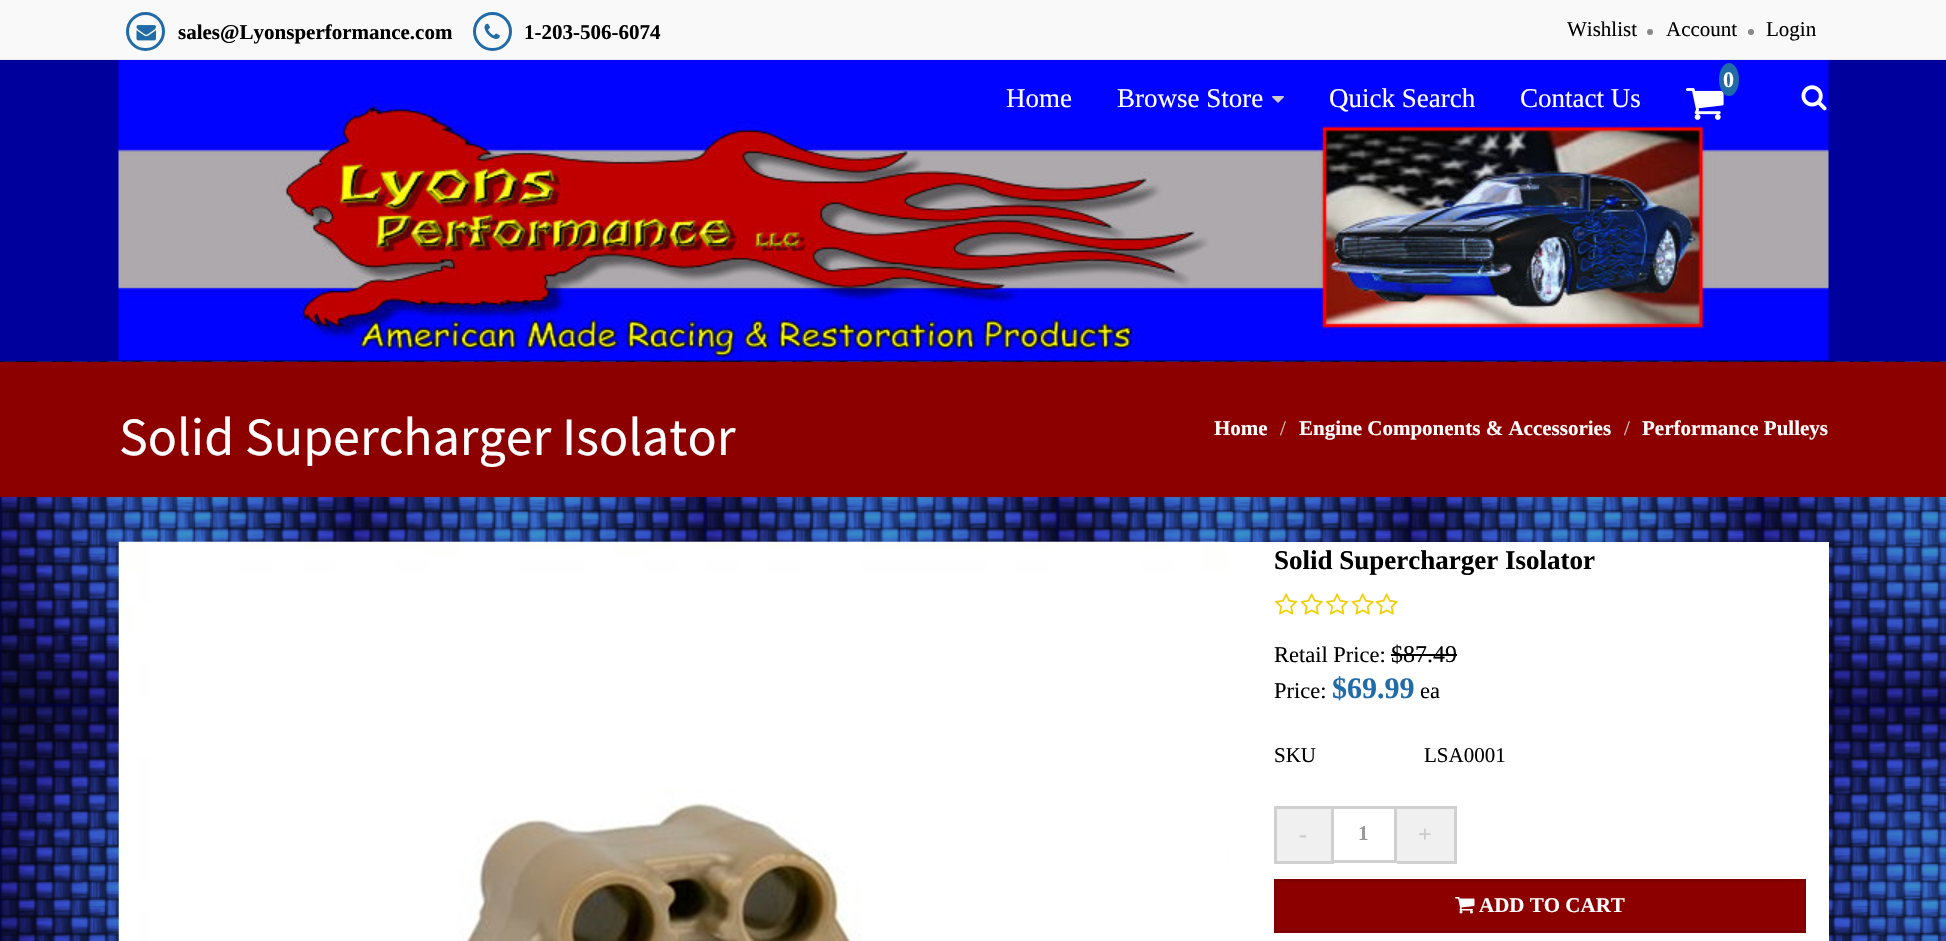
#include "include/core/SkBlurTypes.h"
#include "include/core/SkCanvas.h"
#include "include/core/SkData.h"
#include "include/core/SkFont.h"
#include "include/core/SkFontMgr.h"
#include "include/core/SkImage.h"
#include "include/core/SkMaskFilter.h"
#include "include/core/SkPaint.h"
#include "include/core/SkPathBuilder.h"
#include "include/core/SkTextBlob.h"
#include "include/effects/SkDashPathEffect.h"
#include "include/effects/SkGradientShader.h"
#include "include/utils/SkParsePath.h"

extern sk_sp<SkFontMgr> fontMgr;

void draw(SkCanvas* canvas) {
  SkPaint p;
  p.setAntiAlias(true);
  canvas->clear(SkColorSetRGB(0, 0, 156));
  canvas->drawImageRect(SkImages::DeferredFromEncodedData(SkData::MakeFromFileName("images/1.png")), SkRect::MakeLTRB(0, 361, 1946, 941), SkSamplingOptions());
  p.setColor(SkColorSetRGB(249, 249, 249));
  canvas->drawRect(SkRect::MakeLTRB(0, 0, 1946, 59), p);
  p.setColor(SkColorSetRGB(235, 235, 235));
  canvas->drawRect(SkRect::MakeLTRB(0, 59, 1946, 60), p);
  p.setStyle(SkPaint::kStroke_Style);
  p.setStrokeWidth(3);
  p.setColor(SkColorSetRGB(32, 107, 168));
  canvas->drawCircle(145.5f, 31.5f, 18, p);
  canvas->drawImageRect(SkImages::DeferredFromEncodedData(SkData::MakeFromFileName("images/2.png")), SkRect::MakeLTRB(136, 25, 156, 41), SkSamplingOptions());
  canvas->drawCircle(492.5f, 31.5f, 18, p);
  canvas->drawImageRect(SkImages::DeferredFromEncodedData(SkData::MakeFromFileName("images/3.png")), SkRect::MakeLTRB(484, 23, 500, 39), SkSamplingOptions());
  p.setStyle(SkPaint::kFill_Style);
  p.setColor(SkColorSetRGB(136, 136, 136));
  canvas->drawCircle(1650, 32, 3, p);
  canvas->drawCircle(1751, 32, 3, p);
  canvas->drawImageRect(SkImages::DeferredFromEncodedData(SkData::MakeFromFileName("images/4.png")), SkRect::MakeLTRB(118, 60, 1829, 360), SkSamplingOptions());
  canvas->drawImageRect(SkImages::DeferredFromEncodedData(SkData::MakeFromFileName("images/5.png")), SkRect::MakeLTRB(1686, 88, 1724, 120), SkSamplingOptions());
  p.setColor(SkColorSetRGB(32, 107, 168));
  canvas->drawOval(SkRect::MakeLTRB(1719, 63, 1739, 96), p);
  canvas->drawImageRect(SkImages::DeferredFromEncodedData(SkData::MakeFromFileName("images/6.png")), SkRect::MakeLTRB(1272, 96, 1284, 103), SkSamplingOptions());
  canvas->drawImageRect(SkImages::DeferredFromEncodedData(SkData::MakeFromFileName("images/7.png")), SkRect::MakeLTRB(1801, 85, 1827, 111), SkSamplingOptions());
  p.setColor(SkColorSetRGB(141, 0, 0));
  canvas->drawRect(SkRect::MakeLTRB(0, 362, 1946, 497), p);
  p.setColor(SkColorSetARGB(26, 0, 0, 0));
  p.setMaskFilter(SkMaskFilter::MakeBlur(kNormal_SkBlurStyle, 1.5f));
  canvas->drawRect(SkRect::MakeLTRB(119, 543, 1829, 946), p);
  p.setMaskFilter(nullptr);
  p.setColor(SK_ColorWHITE);
  canvas->drawRect(SkRect::MakeLTRB(1228, 542, 1829, 941), p);
  canvas->drawImageRect(SkImages::DeferredFromEncodedData(SkData::MakeFromFileName("images/8.png")), SkRect::MakeLTRB(118, 541, 1229, 941), SkSamplingOptions());
  canvas->drawImageRect(SkImages::DeferredFromEncodedData(SkData::MakeFromFileName("images/9.png")), SkRect::MakeLTRB(1275, 593, 1298, 615), SkSamplingOptions());
  canvas->drawImageRect(SkImages::DeferredFromEncodedData(SkData::MakeFromFileName("images/10.png")), SkRect::MakeLTRB(1300, 593, 1323, 615), SkSamplingOptions());
  canvas->drawImageRect(SkImages::DeferredFromEncodedData(SkData::MakeFromFileName("images/9.png")), SkRect::MakeLTRB(1326, 593, 1349, 615), SkSamplingOptions());
  canvas->drawImageRect(SkImages::DeferredFromEncodedData(SkData::MakeFromFileName("images/10.png")), SkRect::MakeLTRB(1351, 593, 1374, 615), SkSamplingOptions());
  canvas->drawImageRect(SkImages::DeferredFromEncodedData(SkData::MakeFromFileName("images/10.png")), SkRect::MakeLTRB(1375, 593, 1398, 615), SkSamplingOptions());
  p.setColor(SK_ColorBLACK);
  canvas->drawRect(SkRect::MakeLTRB(1391, 654, 1457, 656), p);
  p.setColor(SkColorSetRGB(240, 240, 240));
  canvas->drawRect(SkRect::MakeLTRB(1275.5f, 807.5f, 1332.5f, 862.5f), p);
  p.setStyle(SkPaint::kStroke_Style);
  p.setColor(SkColorSetRGB(208, 208, 208));
  canvas->drawRect(SkRect::MakeLTRB(1275.5f, 807.5f, 1332.5f, 862.5f), p);
  canvas->drawRect(SkRect::MakeLTRB(1332.5f, 807.5f, 1395.5f, 861.5f), p);
  p.setStyle(SkPaint::kFill_Style);
  p.setColor(SkColorSetRGB(240, 240, 240));
  canvas->drawRect(SkRect::MakeLTRB(1397, 809, 1454, 861), p);
  p.setColor(SkColorSetRGB(208, 208, 208));
  canvas->drawRect(SkRect::MakeLTRB(1397, 806, 1457, 809), p);
  canvas->drawRect(SkRect::MakeLTRB(1454, 806, 1457, 864), p);
  canvas->drawRect(SkRect::MakeLTRB(1397, 861, 1457, 864), p);
  p.setColor(SkColorSetRGB(141, 0, 0));
  canvas->drawRect(SkRect::MakeLTRB(1275.5f, 880.5f, 1804.5f, 931.5f), p);
  p.setStyle(SkPaint::kStroke_Style);
  p.setColor(SkColorSetRGB(127, 0, 0));
  canvas->drawRect(SkRect::MakeLTRB(1275.5f, 880.5f, 1804.5f, 931.5f), p);
  canvas->drawImageRect(SkImages::DeferredFromEncodedData(SkData::MakeFromFileName("images/11.png")), SkRect::MakeLTRB(1455, 897, 1475, 914), SkSamplingOptions());
  SkFont font1(fontMgr->matchFamilyStyle("Liberation Serif", SkFontStyle::Bold()), 21);
  font1.setSubpixel(true);
  p.setStyle(SkPaint::kFill_Style);
  p.setColor(SK_ColorBLACK);
  canvas->drawString("sales@Lyonsperformance.com", 178, 39, font1, p);
  canvas->drawString("1-203-506-6074", 524, 39, font1, p);
  SkFont font2(fontMgr->matchFamilyStyle("Liberation Serif", SkFontStyle::Normal()), 21);
  font2.setSubpixel(true);
  canvas->drawString("Wishlist", 1567, 36, font2, p);
  canvas->drawString("Account", 1666, 36, font2, p);
  canvas->drawString("Login", 1766, 36, font2, p);
  SkFont font3(fontMgr->matchFamilyStyle("Liberation Serif", SkFontStyle::Bold()), 22);
  font3.setSubpixel(true);
  p.setColor(SK_ColorWHITE);
  canvas->drawString("0", 1723, 87, font3, p);
  SkFont font4(fontMgr->matchFamilyStyle("Liberation Serif", SkFontStyle::Normal()), 27);
  font4.setSubpixel(true);
  canvas->drawString("Home", 1006, 107, font4, p);
  canvas->drawString("Browse Store", 1117, 107, font4, p);
  canvas->drawString("Quick Search", 1329, 107, font4, p);
  canvas->drawString("Contact Us", 1520, 107, font4, p);
  SkFont font5(fontMgr->matchFamilyStyle("Source Sans Pro", SkFontStyle::Normal()), 54);
  font5.setSubpixel(true);
  canvas->drawString("Solid Supercharger Isolator", 119, 455, font5, p);
  canvas->drawString("Home", 1214, 435, font1, p);
  p.setColor(SkColorSetRGB(204, 204, 204));
  canvas->drawString("/", 1280, 435, font2, p);
  p.setColor(SK_ColorWHITE);
  canvas->drawString("Engine Components & Accessories", 1299, 435, font1, p);
  p.setColor(SkColorSetRGB(204, 204, 204));
  canvas->drawString("/", 1624, 435, font2, p);
  p.setColor(SK_ColorWHITE);
  canvas->drawString("Performance Pulleys", 1642, 435, font1, p);
  SkFont font6(fontMgr->matchFamilyStyle("Liberation Serif", SkFontStyle::Bold()), 27);
  font6.setSubpixel(true);
  p.setColor(SK_ColorBLACK);
  canvas->drawString("Solid Supercharger Isolator", 1274, 569, font6, p);
  SkFont font7(fontMgr->matchFamilyStyle("Liberation Serif", SkFontStyle::Normal()), 22.5f);
  font7.setSubpixel(true);
  canvas->drawString("Retail Price:", 1274, 662, font7, p);
  SkFont font8(fontMgr->matchFamilyStyle("Liberation Serif", SkFontStyle::Normal()), 24);
  font8.setSubpixel(true);
  canvas->drawString("$87.49", 1391, 662, font8, p);
  canvas->drawString("Price:", 1274, 698, font7, p);
  SkFont font9(fontMgr->matchFamilyStyle("Liberation Serif", SkFontStyle::Bold()), 30);
  font9.setSubpixel(true);
  p.setColor(SkColorSetRGB(32, 107, 168));
  canvas->drawString("$69.99", 1332, 698, font9, p);
  p.setColor(SK_ColorBLACK);
  canvas->drawString("ea", 1420, 698, font7, p);
  canvas->drawString("SKU", 1274, 762, font2, p);
  canvas->drawString("LSA0001", 1424, 762, font2, p);
  SkFont font10(fontMgr->matchFamilyStyle("Liberation Serif", SkFontStyle::Bold()), 24);
  font10.setSubpixel(true);
  p.setColor(SkColorSetRGB(204, 204, 204));
  canvas->drawString("-", 1299, 842, font10, p);
  p.setColor(SkColorSetRGB(153, 153, 153));
  canvas->drawString("1", 1358, 840, font1, p);
  p.setColor(SkColorSetRGB(204, 204, 204));
  canvas->drawString("+", 1418, 842, font10, p);
  p.setColor(SK_ColorWHITE);
  canvas->drawString("ADD TO CART", 1479, 912, font1, p);
}
